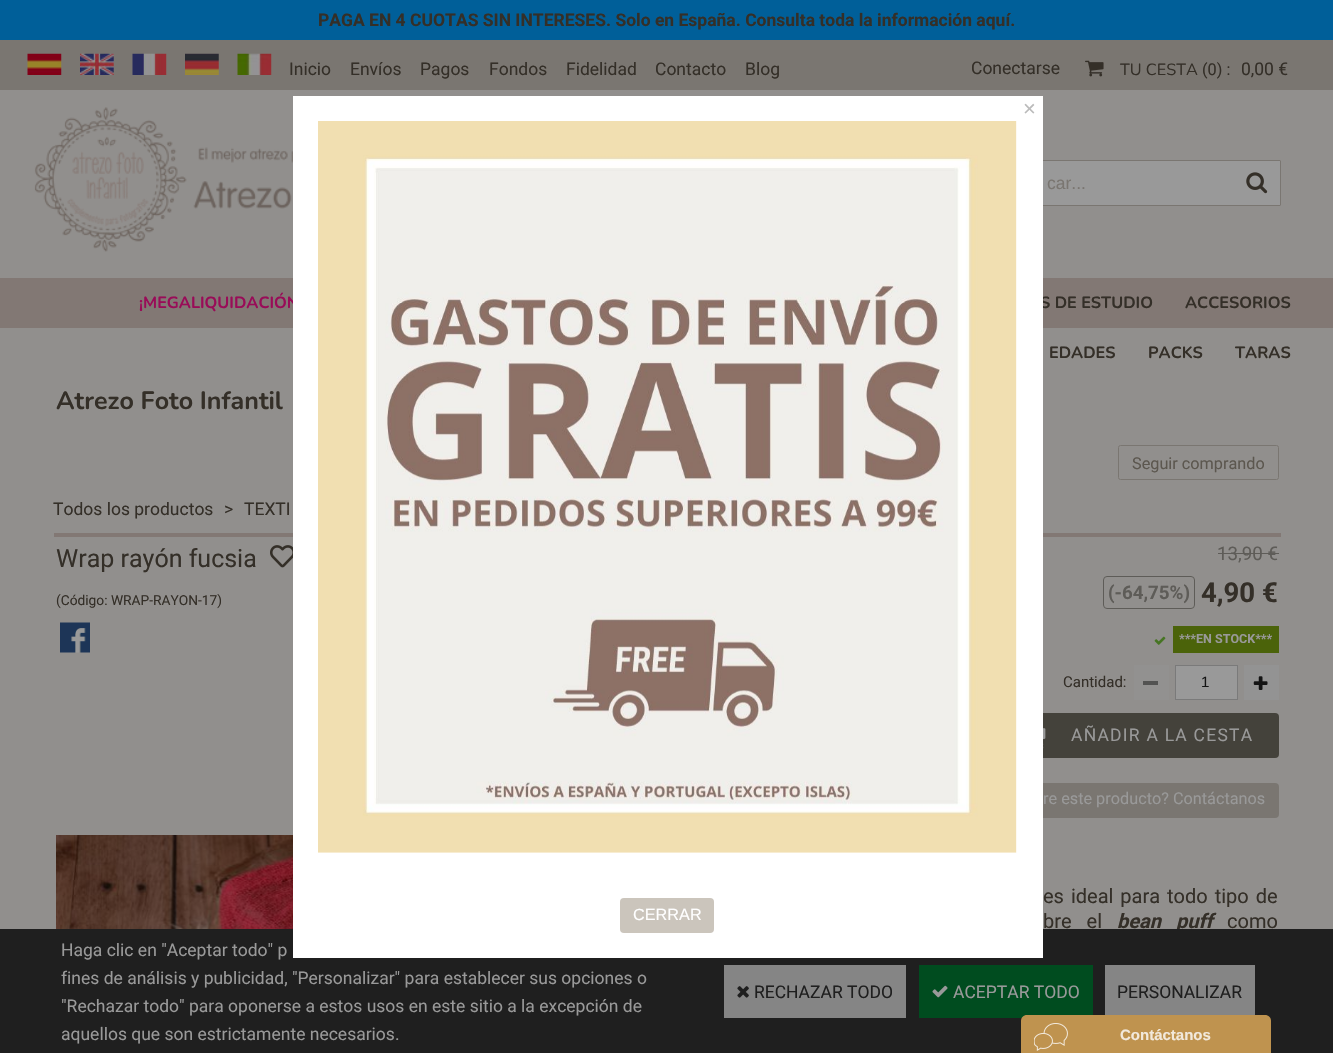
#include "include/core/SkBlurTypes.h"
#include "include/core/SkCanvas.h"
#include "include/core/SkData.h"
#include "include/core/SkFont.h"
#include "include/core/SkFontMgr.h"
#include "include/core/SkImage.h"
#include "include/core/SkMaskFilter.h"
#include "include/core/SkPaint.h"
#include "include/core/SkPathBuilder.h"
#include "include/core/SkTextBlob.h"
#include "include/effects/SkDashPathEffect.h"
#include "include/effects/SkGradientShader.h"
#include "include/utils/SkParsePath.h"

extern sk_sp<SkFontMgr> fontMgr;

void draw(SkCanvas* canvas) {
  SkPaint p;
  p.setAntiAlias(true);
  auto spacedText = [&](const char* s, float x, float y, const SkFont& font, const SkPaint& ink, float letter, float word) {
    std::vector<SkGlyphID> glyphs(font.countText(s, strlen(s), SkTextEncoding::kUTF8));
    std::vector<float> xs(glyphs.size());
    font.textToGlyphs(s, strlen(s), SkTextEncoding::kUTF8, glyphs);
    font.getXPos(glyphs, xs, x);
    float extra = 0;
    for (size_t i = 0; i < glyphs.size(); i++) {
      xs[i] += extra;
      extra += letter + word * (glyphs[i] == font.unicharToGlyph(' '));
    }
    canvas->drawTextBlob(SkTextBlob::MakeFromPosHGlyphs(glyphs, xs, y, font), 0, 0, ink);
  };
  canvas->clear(SkColorSetRGB(145, 143, 141));
  p.setColor(SkColorSetRGB(0, 95, 153));
  canvas->drawRect(SkRect::MakeLTRB(0, 0, 1333, 40), p);
  p.setColor(SkColorSetRGB(130, 120, 116));
  canvas->drawRect(SkRect::MakeLTRB(0, 278, 1333, 328), p);
  p.setColor(SkColorSetRGB(122, 118, 113));
  canvas->drawRect(SkRect::MakeLTRB(0, 40, 1333, 90), p);
  canvas->drawImageRect(SkImages::DeferredFromEncodedData(SkData::MakeFromFileName("images/1.png")), SkRect::MakeLTRB(27, 53, 62, 75), SkSamplingOptions());
  canvas->drawImageRect(SkImages::DeferredFromEncodedData(SkData::MakeFromFileName("images/2.png")), SkRect::MakeLTRB(80, 53, 114, 75), SkSamplingOptions());
  canvas->drawImageRect(SkImages::DeferredFromEncodedData(SkData::MakeFromFileName("images/3.png")), SkRect::MakeLTRB(132, 53, 167, 75), SkSamplingOptions());
  canvas->drawImageRect(SkImages::DeferredFromEncodedData(SkData::MakeFromFileName("images/4.png")), SkRect::MakeLTRB(185, 53, 219, 75), SkSamplingOptions());
  canvas->drawImageRect(SkImages::DeferredFromEncodedData(SkData::MakeFromFileName("images/5.png")), SkRect::MakeLTRB(237, 53, 272, 75), SkSamplingOptions());
  canvas->drawImageRect(SkImages::DeferredFromEncodedData(SkData::MakeFromFileName("images/6.png")), SkRect::MakeLTRB(1085, 60, 1104, 77), SkSamplingOptions());
  canvas->drawImageRect(SkImages::DeferredFromEncodedData(SkData::MakeFromFileName("images/7.png")), SkRect::MakeLTRB(34, 107, 293, 252), SkSamplingOptions());
  p.setColor(SkColorSetRGB(153, 153, 153));
  canvas->drawRoundRect(SkRect::MakeLTRB(1003.5f, 160.5f, 1280.5f, 205.5f), 0.5f, 0.5f, p);
  p.setStyle(SkPaint::kStroke_Style);
  p.setStrokeWidth(1);
  p.setColor(SkColorSetRGB(122, 118, 113));
  canvas->drawRoundRect(SkRect::MakeLTRB(1003.5f, 160.5f, 1280.5f, 205.5f), 0.5f, 0.5f, p);
  canvas->drawImageRect(SkImages::DeferredFromEncodedData(SkData::MakeFromFileName("images/8.png")), SkRect::MakeLTRB(1246, 172, 1268, 194), SkSamplingOptions());
  canvas->drawRoundRect(SkRect::MakeLTRB(1118.5f, 445.5f, 1278.5f, 479.5f), 2, 2, p);
  p.setStyle(SkPaint::kFill_Style);
  p.setColor(SkColorSetRGB(130, 120, 116));
  canvas->drawRect(SkRect::MakeLTRB(54, 533, 1281, 537), p);
  canvas->drawImageRect(SkImages::DeferredFromEncodedData(SkData::MakeFromFileName("images/9.png")), SkRect::MakeLTRB(270, 545, 293, 568), SkSamplingOptions());
  canvas->drawImageRect(SkImages::DeferredFromEncodedData(SkData::MakeFromFileName("images/10.png")), SkRect::MakeLTRB(60, 622, 90, 653), SkSamplingOptions());
  p.setColor(SkColorSetRGB(94, 92, 88));
  canvas->drawRect(SkRect::MakeLTRB(1218, 553, 1279, 554), p);
  p.setStyle(SkPaint::kStroke_Style);
  canvas->drawRoundRect(SkRect::MakeLTRB(1103.5f, 576.5f, 1194.5f, 608.5f), 3.5f, 3.5f, p);
  canvas->drawImageRect(SkImages::DeferredFromEncodedData(SkData::MakeFromFileName("images/11.png")), SkRect::MakeLTRB(1154, 636, 1166, 645), SkSamplingOptions());
  p.setStyle(SkPaint::kFill_Style);
  p.setColor(SkColorSetRGB(75, 99, 10));
  canvas->drawRect(SkRect::MakeLTRB(1173, 626, 1279, 653), p);
  p.setColor(SkColorSetRGB(146, 145, 144));
  canvas->drawRect(SkRect::MakeLTRB(1134, 665, 1169, 700), p);
  p.setColor(SkColorSetRGB(83, 83, 82));
  canvas->drawRect(SkRect::MakeLTRB(1143, 681, 1158, 685), p);
  p.setColor(SkColorSetRGB(153, 153, 153));
  canvas->drawRect(SkRect::MakeLTRB(1175.5f, 665.5f, 1237.5f, 699.5f), p);
  p.setStyle(SkPaint::kStroke_Style);
  p.setColor(SkColorSetRGB(122, 122, 122));
  canvas->drawRect(SkRect::MakeLTRB(1175.5f, 665.5f, 1237.5f, 699.5f), p);
  p.setStyle(SkPaint::kFill_Style);
  p.setColor(SkColorSetRGB(147, 147, 147));
  canvas->drawRect(SkRect::MakeLTRB(1244, 665, 1279, 700), p);
  canvas->drawImageRect(SkImages::DeferredFromEncodedData(SkData::MakeFromFileName("images/12.png")), SkRect::MakeLTRB(1253, 676, 1268, 690), SkSamplingOptions());
  p.setColor(SkColorSetRGB(68, 66, 59));
  canvas->drawRoundRect(SkRect::MakeLTRB(993, 713, 1279, 758), 4, 4, p);
  canvas->drawImageRect(SkImages::DeferredFromEncodedData(SkData::MakeFromFileName("images/13.png")), SkRect::MakeLTRB(1043, 728, 1046, 749), SkSamplingOptions());
  p.setColor(SkColorSetRGB(122, 118, 113));
  canvas->drawRoundRect(SkRect::MakeLTRB(901, 783, 1279, 818), 4, 4, p);
  canvas->drawImageRect(SkImages::DeferredFromEncodedData(SkData::MakeFromFileName("images/14.png")), SkRect::MakeLTRB(56, 835, 293, 929), SkSamplingOptions());
  SkFont font1(fontMgr->matchFamilyStyle("Roboto", SkFontStyle::Bold()), 17.5f);
  font1.setSubpixel(true);
  p.setColor(SkColorSetRGB(52, 47, 40));
  canvas->drawString("PAGA EN 4 CUOTAS SIN INTERESES. Solo en España. Consulta toda la información aquí.", 318, 26, font1, p);
  SkFont font2(fontMgr->matchFamilyStyle("Roboto", SkFontStyle::Normal()), 17.5f);
  font2.setSubpixel(true);
  canvas->drawString("Inicio", 289, 75, font2, p);
  canvas->drawString("Envíos", 350, 75, font2, p);
  canvas->drawString("Pagos", 420, 75, font2, p);
  canvas->drawString("Fondos", 489, 75, font2, p);
  canvas->drawString("Fidelidad", 566, 75, font2, p);
  canvas->drawString("Contacto", 655, 75, font2, p);
  canvas->drawString("Blog", 745, 75, font2, p);
  canvas->drawString("Conectarse", 971, 74, font2, p);
  SkFont font3(fontMgr->matchFamilyStyle("Nunito", SkFontStyle::Normal()), 16.25f);
  font3.setSubpixel(true);
  canvas->drawString("TU CESTA", 1120, 75, font3, p);
  SkFont font4(fontMgr->matchFamilyStyle("Roboto", SkFontStyle::Normal()), 16.25f);
  font4.setSubpixel(true);
  canvas->drawString("(0) :", 1202, 75, font4, p);
  canvas->drawString("0,00 €", 1241, 75, font2, p);
  SkFont font5(fontMgr->matchFamilyStyle("Liberation Sans", SkFontStyle::Normal()), 17.5f);
  font5.setSubpixel(true);
  p.setColor(SkColorSetRGB(122, 118, 113));
  canvas->drawString("car...", 1047, 189, font5, p);
  SkFont font6(fontMgr->matchFamilyStyle("Nunito", SkFontStyle::Bold()), 16.25f);
  font6.setSubpixel(true);
  p.setColor(SkColorSetRGB(153, 12, 88));
  canvas->drawString("¡MEGALIQUIDACIÓN", 139, 308, font6, p);
  p.setColor(SkColorSetRGB(52, 47, 40));
  canvas->drawString("S DE ESTUDIO", 1040, 308, font6, p);
  canvas->drawString("ACCESORIOS", 1185, 308, font6, p);
  canvas->drawString("EDADES", 1049, 358, font6, p);
  canvas->drawString("PACKS", 1148, 358, font6, p);
  canvas->drawString("TARAS", 1235, 358, font6, p);
  SkFont font7(fontMgr->matchFamilyStyle("Nunito", SkFontStyle::Bold()), 25);
  font7.setSubpixel(true);
  canvas->drawString("Atrezo Foto Infantil", 56, 409, font7, p);
  p.setColor(SkColorSetRGB(92, 87, 79));
  canvas->drawString("Seguir comprando", 1132, 469, font4, p);
  p.setColor(SkColorSetRGB(52, 47, 40));
  canvas->drawString("Todos los productos", 53, 515, font2, p);
  canvas->drawString(">", 224, 515, font2, p);
  canvas->drawString("TEXTI", 244, 515, font2, p);
  SkFont font8(fontMgr->matchFamilyStyle("Roboto", SkFontStyle::Normal()), 25);
  font8.setSubpixel(true);
  canvas->drawString("Wrap rayón fucsia", 56, 567, font8, p);
  SkFont font9(fontMgr->matchFamilyStyle("Roboto", SkFontStyle::Normal()), 13.75f);
  font9.setSubpixel(true);
  canvas->drawString("(Código: WRAP-RAYON-17)", 56, 605, font9, p);
  SkFont font10(fontMgr->matchFamilyStyle("Roboto", SkFontStyle::Normal()), 18.75f);
  font10.setSubpixel(true);
  p.setColor(SkColorSetRGB(94, 92, 88));
  canvas->drawString("13,90 €", 1217, 560, font10, p);
  SkFont font11(fontMgr->matchFamilyStyle("Roboto", SkFontStyle::Bold()), 18.75f);
  font11.setSubpixel(true);
  canvas->drawString("(-64,75%)", 1108, 599, font11, p);
  SkFont font12(fontMgr->matchFamilyStyle("Roboto", SkFontStyle::Bold()), 27.5f);
  font12.setSubpixel(true);
  p.setColor(SkColorSetRGB(52, 47, 40));
  canvas->drawString("4,90 €", 1201, 602, font12, p);
  SkFont font13(fontMgr->matchFamilyStyle("Roboto", SkFontStyle::Bold()), 12.5f);
  font13.setSubpixel(true);
  p.setColor(SkColorSetRGB(153, 153, 153));
  canvas->drawString("***EN STOCK***", 1179, 643, font13, p);
  SkFont font14(fontMgr->matchFamilyStyle("Roboto", SkFontStyle::Normal()), 15);
  font14.setSubpixel(true);
  p.setColor(SkColorSetRGB(52, 47, 40));
  canvas->drawString("Cantidad:", 1063, 687, font14, p);
  SkFont font15(fontMgr->matchFamilyStyle("Liberation Sans", SkFontStyle::Normal()), 15);
  font15.setSubpixel(true);
  p.setColor(SkColorSetRGB(20, 20, 20));
  canvas->drawString("1", 1201, 687, font15, p);
  p.setColor(SkColorSetRGB(153, 153, 153));
  spacedText("AÑADIR A LA CESTA", 1071, 741, font2, p, 1.25f, 0);
  canvas->drawString("re este producto? Contáctanos", 1043, 804, font4, p);
  SkFont font16(fontMgr->matchFamilyStyle("Roboto", SkFontStyle::Normal()), 20);
  font16.setSubpixel(true);
  p.setColor(SkColorSetRGB(52, 47, 40));
  spacedText("es ideal para todo tipo de", 1043, 903, font16, p, 0, 2);
  spacedText("bre el", 1043, 928, font16, p, 0, 10);
  SkFont font17(fontMgr->matchFamilyStyle("Roboto", SkFontStyle::BoldItalic()), 20);
  font17.setSubpixel(true);
  spacedText("bean puff", 1117, 928, font17, p, 0, 10);
  canvas->drawString("como", 1227, 928, font16, p);
  p.setColor(SkColorSetRGB(31, 31, 31));
  canvas->drawRect(SkRect::MakeLTRB(0, 929, 1333, 1053), p);
  p.setColor(SkColorSetRGB(153, 153, 153));
  canvas->drawString("Haga clic en \"Aceptar todo\" p", 61, 956, font2, p);
  canvas->drawString("fines de análisis y publicidad, \"Personalizar\" para establecer sus opciones o", 61, 984, font2, p);
  canvas->drawString("\"Rechazar todo\" para oponerse a estos usos en este sitio a la excepción de", 61, 1012, font2, p);
  canvas->drawString("aquellos que son estrictamente necesarios.", 61, 1040, font2, p);
  p.setColor(SkColorSetRGB(133, 133, 133));
  canvas->drawRect(SkRect::MakeLTRB(724, 965, 906, 1018), p);
  canvas->drawImageRect(SkImages::DeferredFromEncodedData(SkData::MakeFromFileName("images/15.png")), SkRect::MakeLTRB(737, 986, 749, 998), SkSamplingOptions());
  p.setColor(SkColorSetRGB(31, 31, 31));
  canvas->drawString("RECHAZAR TODO", 754, 998, font2, p);
  p.setColor(SkColorSetRGB(0, 76, 31));
  canvas->drawRect(SkRect::MakeLTRB(919, 965, 1093, 1018), p);
  canvas->drawImageRect(SkImages::DeferredFromEncodedData(SkData::MakeFromFileName("images/16.png")), SkRect::MakeLTRB(932, 985, 948, 998), SkSamplingOptions());
  p.setColor(SkColorSetRGB(153, 153, 153));
  canvas->drawString("ACEPTAR TODO", 953, 998, font2, p);
  p.setColor(SkColorSetRGB(133, 133, 133));
  canvas->drawRect(SkRect::MakeLTRB(1105, 965, 1255, 1015), p);
  p.setColor(SkColorSetRGB(31, 31, 31));
  canvas->drawString("PERSONALIZAR", 1117, 998, font2, p);
  p.setColor(SK_ColorWHITE);
  canvas->drawRect(SkRect::MakeLTRB(293, 96, 1043, 958), p);
  SkFont font18(fontMgr->matchFamilyStyle("Liberation Sans", SkFontStyle::Normal()), 22);
  font18.setSubpixel(true);
  p.setColor(SkColorSetRGB(187, 187, 187));
  canvas->drawString("×", 1023, 116, font18, p);
  canvas->drawImageRect(SkImages::DeferredFromEncodedData(SkData::MakeFromFileName("images/17.png")), SkRect::MakeLTRB(318, 121, 1017, 853), SkSamplingOptions());
  p.setColor(SkColorSetRGB(203, 197, 188));
  canvas->drawRoundRect(SkRect::MakeLTRB(620, 898, 714, 933), 4, 4, p);
  SkFont font19(fontMgr->matchFamilyStyle("Liberation Sans", SkFontStyle::Normal()), 16.25f);
  font19.setSubpixel(true);
  p.setColor(SK_ColorWHITE);
  canvas->drawString("CERRAR", 633, 920, font19, p);
  p.setColor(SkColorSetRGB(191, 147, 79));
  canvas->drawPath(SkPathBuilder().moveTo(1027, 1015).lineTo(1265, 1015).cubicTo(1268.5f, 1015, 1271, 1017.5f, 1271, 1021).lineTo(1271, 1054).lineTo(1021, 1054).lineTo(1021, 1021).cubicTo(1021, 1017.5f, 1023.5f, 1015, 1027, 1015).close().detach(), p);
  canvas->drawImageRect(SkImages::DeferredFromEncodedData(SkData::MakeFromFileName("images/18.png")), SkRect::MakeLTRB(1034, 1023, 1068, 1051), SkSamplingOptions());
  SkFont font20(fontMgr->matchFamilyStyle("Liberation Sans", SkFontStyle::Bold()), 15);
  font20.setSubpixel(true);
  p.setColor(SkColorSetRGB(242, 233, 220));
  canvas->drawString("Contáctanos", 1120, 1040, font20, p);
}
